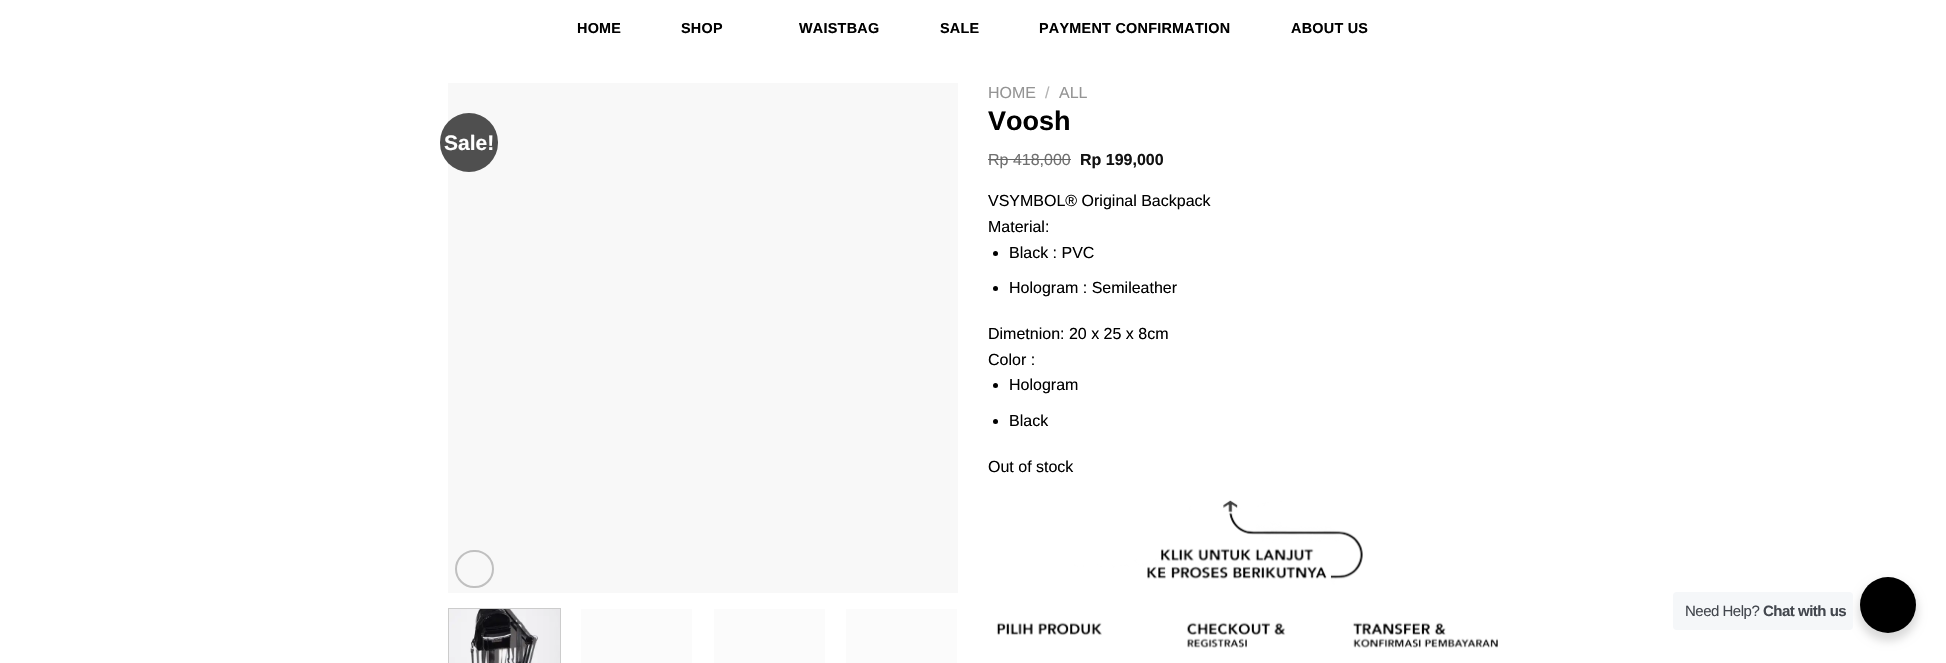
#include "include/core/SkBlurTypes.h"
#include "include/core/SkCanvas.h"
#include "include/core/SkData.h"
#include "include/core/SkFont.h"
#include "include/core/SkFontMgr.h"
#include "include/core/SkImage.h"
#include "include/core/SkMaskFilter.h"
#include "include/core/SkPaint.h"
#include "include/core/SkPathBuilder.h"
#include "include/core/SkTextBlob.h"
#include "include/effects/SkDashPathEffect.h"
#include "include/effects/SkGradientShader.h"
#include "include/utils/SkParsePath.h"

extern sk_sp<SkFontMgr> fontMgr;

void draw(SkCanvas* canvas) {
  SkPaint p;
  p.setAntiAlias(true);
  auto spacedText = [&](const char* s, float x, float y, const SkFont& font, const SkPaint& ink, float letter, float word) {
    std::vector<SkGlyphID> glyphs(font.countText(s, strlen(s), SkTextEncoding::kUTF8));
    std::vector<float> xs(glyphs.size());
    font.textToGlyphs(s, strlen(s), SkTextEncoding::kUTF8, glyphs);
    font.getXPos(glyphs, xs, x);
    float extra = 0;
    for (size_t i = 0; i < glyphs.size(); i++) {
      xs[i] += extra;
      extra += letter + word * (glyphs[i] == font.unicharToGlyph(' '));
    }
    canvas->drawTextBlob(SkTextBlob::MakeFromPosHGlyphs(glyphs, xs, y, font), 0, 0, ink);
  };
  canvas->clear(SK_ColorWHITE);
  p.setColor(SkColorSetRGB(248, 248, 248));
  canvas->drawRect(SkRect::MakeLTRB(448, 83, 958, 593), p);
  p.setColor(SkColorSetRGB(79, 79, 79));
  canvas->drawRoundRect(SkRect::MakeLTRB(440, 113, 498, 172), 29, 29, p);
  p.setStyle(SkPaint::kStroke_Style);
  p.setStrokeWidth(2);
  p.setColor(SkColorSetRGB(192, 192, 192));
  canvas->drawRoundRect(SkRect::MakeLTRB(456, 551, 493, 587), 18, 18, p);
  p.setStrokeWidth(1);
  p.setColor(SkColorSetRGB(204, 204, 204));
  canvas->drawRect(SkRect::MakeLTRB(448.5f, 608.5f, 560.5f, 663.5f), p);
  canvas->drawImageRect(SkImages::DeferredFromEncodedData(SkData::MakeFromFileName("images/1.png")), SkRect::MakeLTRB(449, 609, 560, 663), SkSamplingOptions());
  p.setStyle(SkPaint::kFill_Style);
  p.setColor(SkColorSetRGB(251, 251, 251));
  canvas->drawRect(SkRect::MakeLTRB(581, 609, 692, 663), p);
  canvas->drawRect(SkRect::MakeLTRB(714, 609, 825, 663), p);
  canvas->drawRect(SkRect::MakeLTRB(846, 609, 957, 663), p);
  p.setColor(SK_ColorBLACK);
  canvas->drawCircle(995.5f, 253.5f, 2.5f, p);
  canvas->drawCircle(995.5f, 288.5f, 2.5f, p);
  canvas->drawCircle(995.5f, 385.5f, 2.5f, p);
  canvas->drawCircle(995.5f, 421.5f, 2.5f, p);
  canvas->drawImageRect(SkImages::DeferredFromEncodedData(SkData::MakeFromFileName("images/2.png")), SkRect::MakeLTRB(996, 500, 1498, 648), SkSamplingOptions());
  p.setColor(SkColorSetARGB(36, 0, 0, 0));
  p.setMaskFilter(SkMaskFilter::MakeBlur(kNormal_SkBlurStyle, 4));
  canvas->drawRoundRect(SkRect::MakeLTRB(1858, 581, 1918, 641), 30, 30, p);
  p.setMaskFilter(nullptr);
  p.setColor(SkColorSetRGB(245, 247, 249));
  canvas->drawRoundRect(SkRect::MakeLTRB(1673, 592, 1853, 630), 4, 4, p);
  p.setColor(SK_ColorBLACK);
  canvas->drawCircle(1888, 605, 28, p);
  SkFont font1(fontMgr->matchFamilyStyle("Liberation Sans", SkFontStyle::Bold()), 14.4f);
  font1.setSubpixel(true);
  spacedText("HOME", 577, 33, font1, p, 0.25f, 0);
  spacedText("SHOP", 681, 33, font1, p, 0.25f, 0);
  spacedText("WAISTBAG", 799, 33, font1, p, 0.25f, 0);
  spacedText("SALE", 940, 33, font1, p, 0.25f, 0);
  spacedText("PAYMENT CONFIRMATION", 1039, 33, font1, p, 0.25f, 0);
  spacedText("ABOUT US", 1291, 33, font1, p, 0.25f, 0);
  SkFont font2(fontMgr->matchFamilyStyle("Liberation Sans", SkFontStyle::Bold()), 21);
  font2.setSubpixel(true);
  p.setColor(SK_ColorWHITE);
  canvas->drawString("Sale!", 444, 150, font2, p);
  SkFont font3(fontMgr->matchFamilyStyle("Liberation Sans", SkFontStyle::Normal()), 16);
  font3.setSubpixel(true);
  p.setColor(SkColorSetRGB(148, 148, 148));
  canvas->drawString("HOME", 988, 98, font3, p);
  p.setColor(SkColorSetRGB(178, 178, 178));
  canvas->drawString("/", 1045, 98, font3, p);
  p.setColor(SkColorSetRGB(148, 148, 148));
  canvas->drawString("ALL", 1059, 98, font3, p);
  SkFont font4(fontMgr->matchFamilyStyle("Liberation Sans", SkFontStyle::Bold()), 27);
  font4.setSubpixel(true);
  p.setColor(SK_ColorBLACK);
  canvas->drawString("Voosh", 988, 130, font4, p);
  p.setColor(SkColorSetRGB(112, 112, 112));
  canvas->drawString("Rp 418,000", 988, 165, font3, p);
  p.setColor(SkColorSetRGB(102, 102, 102));
  canvas->drawRect(SkRect::MakeLTRB(988, 159, 1071, 160), p);
  SkFont font5(fontMgr->matchFamilyStyle("Liberation Sans", SkFontStyle::Bold()), 16);
  font5.setSubpixel(true);
  p.setColor(SkColorSetRGB(17, 17, 17));
  canvas->drawString("Rp 199,000", 1080, 165, font5, p);
  p.setColor(SK_ColorBLACK);
  canvas->drawString("VSYMBOL® Original Backpack", 988, 206, font3, p);
  canvas->drawString("Material:", 988, 232, font3, p);
  canvas->drawString("Black : PVC", 1009, 258, font3, p);
  canvas->drawString("Hologram : Semileather", 1009, 293, font3, p);
  canvas->drawString("Dimetnion: 20 x 25 x 8cm", 988, 339, font3, p);
  canvas->drawString("Color :", 988, 365, font3, p);
  canvas->drawString("Hologram", 1009, 390, font3, p);
  canvas->drawString("Black", 1009, 426, font3, p);
  canvas->drawString("Out of stock", 988, 472, font3, p);
  SkFont font6(fontMgr->matchFamilyStyle("Liberation Sans", SkFontStyle::Normal()), 15);
  font6.setSubpixel(true);
  p.setColor(SkColorSetRGB(67, 71, 78));
  spacedText("Need Help?", 1685, 616, font6, p, -0.5f, 0);
  SkFont font7(fontMgr->matchFamilyStyle("Liberation Sans", SkFontStyle::Bold()), 15);
  font7.setSubpixel(true);
  spacedText("Chat with us", 1763, 616, font7, p, -0.5f, 0);
}
